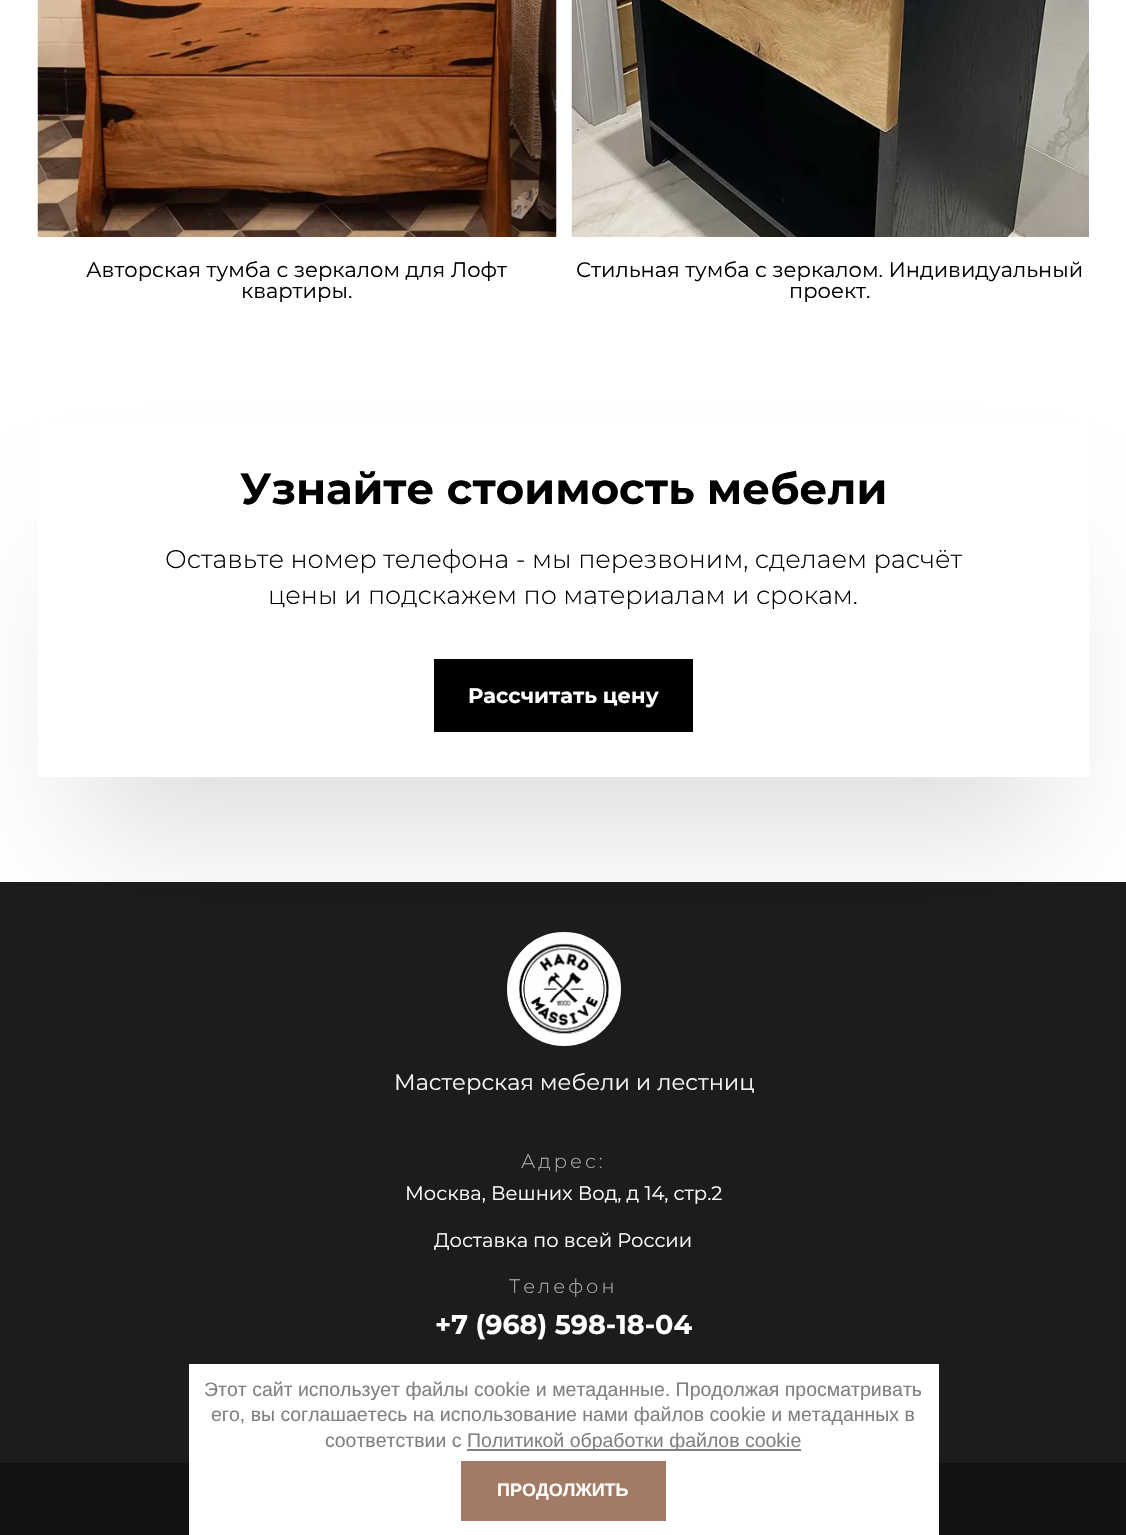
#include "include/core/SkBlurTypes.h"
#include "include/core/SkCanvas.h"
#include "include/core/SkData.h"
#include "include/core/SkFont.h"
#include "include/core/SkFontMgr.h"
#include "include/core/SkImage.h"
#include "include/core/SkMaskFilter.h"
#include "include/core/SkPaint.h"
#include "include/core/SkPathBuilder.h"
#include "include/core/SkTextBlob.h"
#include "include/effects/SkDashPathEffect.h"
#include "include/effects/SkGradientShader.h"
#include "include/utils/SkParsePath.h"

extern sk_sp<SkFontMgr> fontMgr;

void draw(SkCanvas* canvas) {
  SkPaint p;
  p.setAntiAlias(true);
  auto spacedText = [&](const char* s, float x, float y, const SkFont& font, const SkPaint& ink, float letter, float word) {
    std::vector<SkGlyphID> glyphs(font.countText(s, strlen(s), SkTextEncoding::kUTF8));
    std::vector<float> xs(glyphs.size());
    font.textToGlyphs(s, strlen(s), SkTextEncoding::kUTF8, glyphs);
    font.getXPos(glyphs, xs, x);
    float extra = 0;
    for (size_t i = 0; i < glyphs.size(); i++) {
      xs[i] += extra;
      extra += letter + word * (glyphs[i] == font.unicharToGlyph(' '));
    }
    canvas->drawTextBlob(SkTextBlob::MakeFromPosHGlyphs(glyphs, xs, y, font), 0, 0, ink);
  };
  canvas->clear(SK_ColorWHITE);
  canvas->drawImageRect(SkImages::DeferredFromEncodedData(SkData::MakeFromFileName("images/1.png")), SkRect::MakeLTRB(37, 0, 557, 237), SkSamplingOptions());
  canvas->drawImageRect(SkImages::DeferredFromEncodedData(SkData::MakeFromFileName("images/2.png")), SkRect::MakeLTRB(571, 0, 1089, 237), SkSamplingOptions());
  p.setColor(SkColorSetRGB(28, 28, 28));
  canvas->drawRect(SkRect::MakeLTRB(0, 882, 1126, 1463), p);
  p.setStyle(SkPaint::kStroke_Style);
  p.setStrokeWidth(12);
  p.setColor(SK_ColorWHITE);
  canvas->drawCircle(564, 989, 51, p);
  p.setStyle(SkPaint::kFill_Style);
  canvas->drawCircle(564, 989, 45, p);
  canvas->drawImageRect(SkImages::DeferredFromEncodedData(SkData::MakeFromFileName("images/3.png")), SkRect::MakeLTRB(519, 943, 609, 1034), SkSamplingOptions());
  canvas->save();
  canvas->clipPath(SkPathBuilder(SkPathFillType::kEvenOdd).moveTo(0, 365).lineTo(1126, 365).lineTo(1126, 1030).lineTo(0, 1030).close().moveTo(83, 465).lineTo(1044, 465).lineTo(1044, 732).lineTo(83, 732).close().detach(), true);
  p.setColor(SkColorSetARGB(33, 0, 0, 0));
  p.setMaskFilter(SkMaskFilter::MakeBlur(kNormal_SkBlurStyle, 66));
  canvas->drawRect(SkRect::MakeLTRB(83, 564, 1044, 831), p);
  p.setMaskFilter(nullptr);
  canvas->restore();
  p.setStyle(SkPaint::kStroke_Style);
  p.setStrokeWidth(45);
  p.setColor(SK_ColorWHITE);
  canvas->drawRect(SkRect::MakeLTRB(60.5f, 442.5f, 1066.5f, 754.5f), p);
  p.setStyle(SkPaint::kFill_Style);
  p.setColor(SK_ColorBLACK);
  canvas->drawRect(SkRect::MakeLTRB(434, 659, 693, 732), p);
  p.setColor(SkColorSetRGB(18, 18, 18));
  canvas->drawRect(SkRect::MakeLTRB(0, 1463, 1126, 1535), p);
  p.setColor(SK_ColorWHITE);
  canvas->drawRect(SkRect::MakeLTRB(189, 1364, 939, 1535), p);
  p.setColor(SkColorSetRGB(128, 128, 128));
  canvas->drawRect(SkRect::MakeLTRB(467, 1449, 801, 1451), p);
  p.setColor(SkColorSetRGB(163, 122, 100));
  canvas->drawRect(SkRect::MakeLTRB(461, 1461, 666, 1521), p);
  SkFont font1(fontMgr->matchFamilyStyle("Montserrat", SkFontStyle::Normal()), 21);
  font1.setSubpixel(true);
  p.setColor(SK_ColorBLACK);
  canvas->drawString("Авторская тумба с зеркалом для Лофт", 86, 277, font1, p);
  canvas->drawString("квартиры.", 241, 298, font1, p);
  canvas->drawString("Стильная тумба с зеркалом. Индивидуальный", 576, 277, font1, p);
  canvas->drawString("проект.", 789, 298, font1, p);
  SkFont font2(fontMgr->matchFamilyStyle("Montserrat", SkFontStyle::Bold()), 43.5f);
  font2.setSubpixel(true);
  canvas->drawString("Узнайте стоимость мебели", 240, 504, font2, p);
  SkFont font3(fontMgr->matchFamilyStyle("Montserrat", SkFontStyle(300, SkFontStyle::kNormal_Width, SkFontStyle::kUpright_Slant)), 25.5f);
  font3.setSubpixel(true);
  canvas->drawString("Оставьте номер телефона - мы перезвоним, сделаем расчёт", 165, 568, font3, p);
  canvas->drawString("цены и подскажем по материалам и срокам.", 268, 604, font3, p);
  SkFont font4(fontMgr->matchFamilyStyle("Montserrat", SkFontStyle::Bold()), 21);
  font4.setSubpixel(true);
  p.setColor(SK_ColorWHITE);
  canvas->drawString("Рассчитать цену", 468, 703, font4, p);
  SkFont font5(fontMgr->matchFamilyStyle("Montserrat", SkFontStyle::Normal()), 22.5f);
  font5.setSubpixel(true);
  p.setColor(SkColorSetRGB(245, 246, 248));
  canvas->drawString("Мастерская мебели и лестниц", 394, 1090, font5, p);
  SkFont font6(fontMgr->matchFamilyStyle("Montserrat", SkFontStyle(300, SkFontStyle::kNormal_Width, SkFontStyle::kUpright_Slant)), 19.5f);
  font6.setSubpixel(true);
  p.setColor(SkColorSetRGB(173, 173, 173));
  spacedText("Адрес:", 521, 1168, font6, p, 3, 0);
  SkFont font7(fontMgr->matchFamilyStyle("Montserrat", SkFontStyle::Normal()), 19.5f);
  font7.setSubpixel(true);
  p.setColor(SK_ColorWHITE);
  canvas->drawString("Москва, Вешних Вод, д 14, стр.2", 405, 1200, font7, p);
  canvas->drawString("Доставка по всей России", 434, 1247, font7, p);
  p.setColor(SkColorSetRGB(173, 173, 173));
  spacedText("Телефон", 509, 1293, font6, p, 3, 0);
  SkFont font8(fontMgr->matchFamilyStyle("Montserrat", SkFontStyle::Bold()), 27);
  font8.setSubpixel(true);
  p.setColor(SK_ColorWHITE);
  canvas->drawString("+7 (968) 598-18-04", 435, 1334, font8, p);
  SkFont font9(fontMgr->matchFamilyStyle("Liberation Sans", SkFontStyle::Normal()), 19.5f);
  font9.setSubpixel(true);
  p.setColor(SkColorSetRGB(128, 128, 128));
  canvas->drawString("Этот сайт использует файлы cookie и метаданные. Продолжая просматривать", 204, 1396, font9, p);
  canvas->drawString("его, вы соглашаетесь на использование нами файлов cookie и метаданных в", 211, 1421, font9, p);
  canvas->drawString("соответствии с", 325, 1447, font9, p);
  canvas->drawString("Политикой обработки файлов cookie", 467, 1447, font9, p);
  SkFont font10(fontMgr->matchFamilyStyle("Liberation Sans", SkFontStyle::Bold()), 18);
  font10.setSubpixel(true);
  p.setColor(SK_ColorWHITE);
  canvas->drawString("ПРОДОЛЖИТЬ", 497, 1496, font10, p);
}
